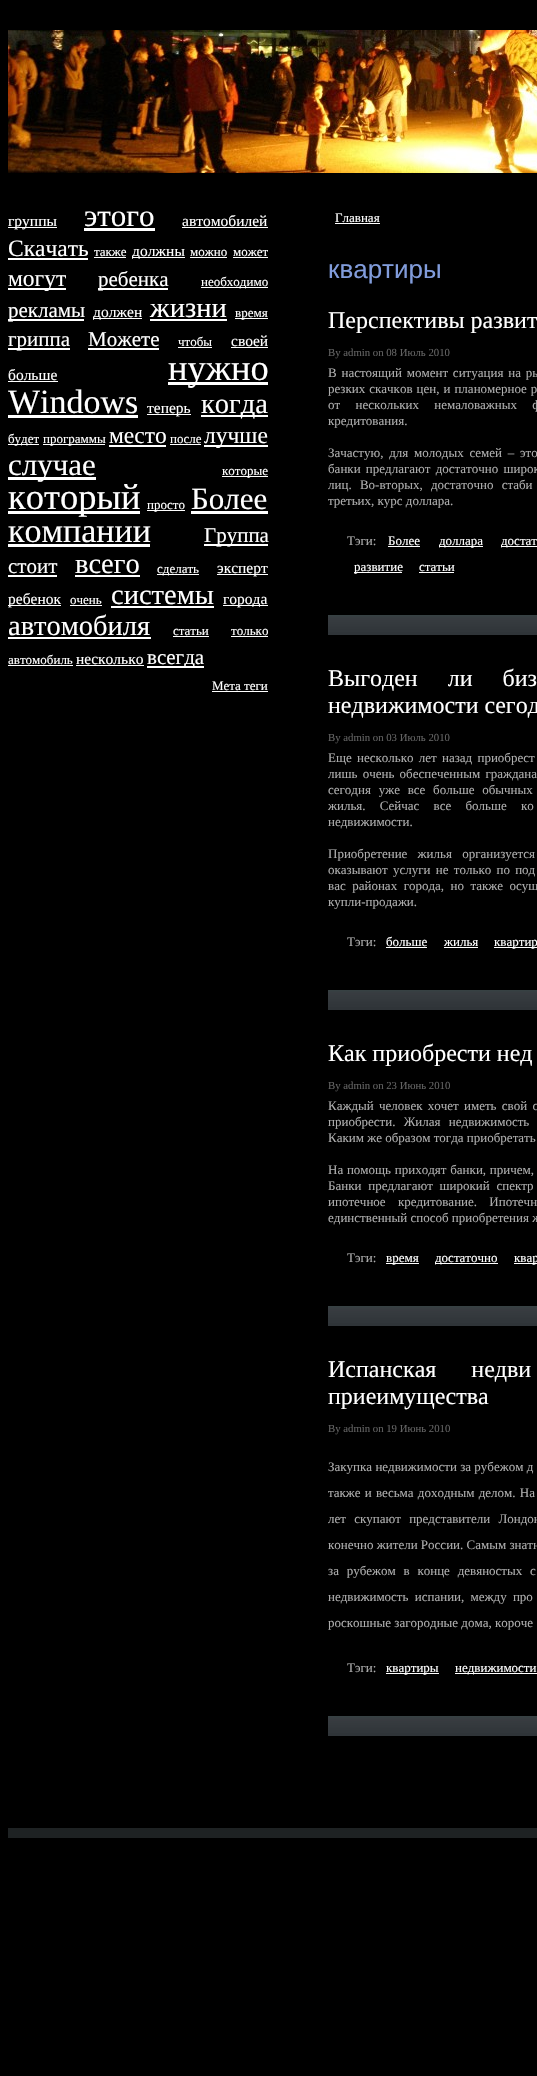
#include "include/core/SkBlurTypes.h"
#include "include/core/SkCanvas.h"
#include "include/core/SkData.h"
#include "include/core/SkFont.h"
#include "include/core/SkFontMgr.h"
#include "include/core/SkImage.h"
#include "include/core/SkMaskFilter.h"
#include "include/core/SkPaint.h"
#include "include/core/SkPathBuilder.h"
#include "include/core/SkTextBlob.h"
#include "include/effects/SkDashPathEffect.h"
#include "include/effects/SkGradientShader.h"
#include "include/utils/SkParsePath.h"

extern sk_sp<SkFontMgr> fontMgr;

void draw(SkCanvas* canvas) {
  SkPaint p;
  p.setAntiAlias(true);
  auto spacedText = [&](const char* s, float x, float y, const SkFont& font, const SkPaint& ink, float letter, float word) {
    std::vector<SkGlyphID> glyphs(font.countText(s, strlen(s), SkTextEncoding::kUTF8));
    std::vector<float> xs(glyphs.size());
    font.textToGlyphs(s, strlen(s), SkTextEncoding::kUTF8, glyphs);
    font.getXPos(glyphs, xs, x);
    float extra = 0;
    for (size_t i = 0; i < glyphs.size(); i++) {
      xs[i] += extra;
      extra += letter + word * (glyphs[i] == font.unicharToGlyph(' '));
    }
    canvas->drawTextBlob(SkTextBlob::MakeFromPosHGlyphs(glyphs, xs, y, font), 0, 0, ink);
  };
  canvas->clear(SK_ColorBLACK);
  canvas->drawImageRect(SkImages::DeferredFromEncodedData(SkData::MakeFromFileName("images/1.png")), SkRect::MakeLTRB(8, 30, 537, 173), SkSamplingOptions());
  p.setColor(SK_ColorWHITE);
  canvas->drawRect(SkRect::MakeLTRB(8, 227, 57, 228), p);
  canvas->drawRect(SkRect::MakeLTRB(84, 228, 155, 231), p);
  canvas->drawRect(SkRect::MakeLTRB(182, 227, 268, 228), p);
  canvas->drawRect(SkRect::MakeLTRB(8, 258, 88, 260), p);
  canvas->drawRect(SkRect::MakeLTRB(94, 257, 126, 258), p);
  canvas->drawRect(SkRect::MakeLTRB(132, 257, 185, 258), p);
  canvas->drawRect(SkRect::MakeLTRB(190, 257, 227, 258), p);
  canvas->drawRect(SkRect::MakeLTRB(233, 257, 268, 258), p);
  canvas->drawRect(SkRect::MakeLTRB(8, 288, 66, 290), p);
  canvas->drawRect(SkRect::MakeLTRB(98, 288, 168, 290), p);
  canvas->drawRect(SkRect::MakeLTRB(201, 287, 268, 288), p);
  canvas->drawRect(SkRect::MakeLTRB(8, 319, 84, 321), p);
  canvas->drawRect(SkRect::MakeLTRB(93, 318, 142, 319), p);
  canvas->drawRect(SkRect::MakeLTRB(150, 319, 227, 321), p);
  canvas->drawRect(SkRect::MakeLTRB(235, 318, 268, 319), p);
  canvas->drawRect(SkRect::MakeLTRB(8, 348, 70, 350), p);
  canvas->drawRect(SkRect::MakeLTRB(88, 348, 159, 350), p);
  canvas->drawRect(SkRect::MakeLTRB(178, 347, 212, 348), p);
  canvas->drawRect(SkRect::MakeLTRB(231, 347, 268, 348), p);
  canvas->drawRect(SkRect::MakeLTRB(8, 381, 58, 382), p);
  canvas->drawRect(SkRect::MakeLTRB(168, 382, 268, 385), p);
  canvas->drawRect(SkRect::MakeLTRB(8, 415, 138, 418), p);
  canvas->drawRect(SkRect::MakeLTRB(147, 414, 191, 415), p);
  canvas->drawRect(SkRect::MakeLTRB(201, 415, 268, 417), p);
  canvas->drawRect(SkRect::MakeLTRB(8, 444, 39, 445), p);
  canvas->drawRect(SkRect::MakeLTRB(43, 444, 105, 445), p);
  canvas->drawRect(SkRect::MakeLTRB(109, 445, 166, 447), p);
  canvas->drawRect(SkRect::MakeLTRB(170, 444, 201, 445), p);
  canvas->drawRect(SkRect::MakeLTRB(204, 445, 268, 447), p);
  canvas->drawRect(SkRect::MakeLTRB(8, 477, 96, 480), p);
  canvas->drawRect(SkRect::MakeLTRB(222, 476, 268, 477), p);
  canvas->drawRect(SkRect::MakeLTRB(8, 511, 140, 514), p);
  canvas->drawRect(SkRect::MakeLTRB(147, 510, 185, 511), p);
  canvas->drawRect(SkRect::MakeLTRB(191, 511, 268, 514), p);
  canvas->drawRect(SkRect::MakeLTRB(8, 544, 150, 547), p);
  canvas->drawRect(SkRect::MakeLTRB(204, 544, 268, 546), p);
  canvas->drawRect(SkRect::MakeLTRB(8, 575, 57, 577), p);
  canvas->drawRect(SkRect::MakeLTRB(75, 575, 140, 577), p);
  canvas->drawRect(SkRect::MakeLTRB(157, 574, 199, 575), p);
  canvas->drawRect(SkRect::MakeLTRB(217, 574, 268, 575), p);
  canvas->drawRect(SkRect::MakeLTRB(8, 605, 61, 606), p);
  canvas->drawRect(SkRect::MakeLTRB(70, 605, 102, 606), p);
  canvas->drawRect(SkRect::MakeLTRB(111, 606, 214, 608), p);
  canvas->drawRect(SkRect::MakeLTRB(223, 605, 268, 606), p);
  canvas->drawRect(SkRect::MakeLTRB(8, 637, 151, 639), p);
  canvas->drawRect(SkRect::MakeLTRB(173, 636, 209, 637), p);
  canvas->drawRect(SkRect::MakeLTRB(231, 636, 268, 637), p);
  canvas->drawRect(SkRect::MakeLTRB(8, 665, 73, 666), p);
  canvas->drawRect(SkRect::MakeLTRB(76, 665, 144, 666), p);
  canvas->drawRect(SkRect::MakeLTRB(147, 666, 204, 668), p);
  canvas->drawRect(SkRect::MakeLTRB(212, 691, 268, 692), p);
  canvas->drawRect(SkRect::MakeLTRB(335, 223, 380, 224), p);
  canvas->drawRect(SkRect::MakeLTRB(388, 546, 420, 547), p);
  canvas->drawRect(SkRect::MakeLTRB(439, 546, 483, 547), p);
  canvas->drawRect(SkRect::MakeLTRB(501, 546, 537, 547), p);
  canvas->drawRect(SkRect::MakeLTRB(354, 572, 402, 573), p);
  canvas->drawRect(SkRect::MakeLTRB(419, 572, 454, 573), p);
  canvas->drawImageRect(SkImages::DeferredFromEncodedData(SkData::MakeFromFileName("images/2.png")), SkRect::MakeLTRB(328, 615, 537, 635), SkSamplingOptions());
  canvas->drawRect(SkRect::MakeLTRB(386, 947, 427, 948), p);
  canvas->drawRect(SkRect::MakeLTRB(444, 947, 478, 948), p);
  canvas->drawRect(SkRect::MakeLTRB(494, 947, 537, 948), p);
  canvas->drawImageRect(SkImages::DeferredFromEncodedData(SkData::MakeFromFileName("images/2.png")), SkRect::MakeLTRB(328, 990, 537, 1010), SkSamplingOptions());
  canvas->drawRect(SkRect::MakeLTRB(386, 1263, 419, 1264), p);
  canvas->drawRect(SkRect::MakeLTRB(435, 1263, 498, 1264), p);
  canvas->drawRect(SkRect::MakeLTRB(514, 1263, 537, 1264), p);
  canvas->drawImageRect(SkImages::DeferredFromEncodedData(SkData::MakeFromFileName("images/2.png")), SkRect::MakeLTRB(328, 1306, 537, 1326), SkSamplingOptions());
  canvas->drawRect(SkRect::MakeLTRB(386, 1673, 439, 1674), p);
  canvas->drawRect(SkRect::MakeLTRB(455, 1673, 537, 1674), p);
  canvas->drawImageRect(SkImages::DeferredFromEncodedData(SkData::MakeFromFileName("images/2.png")), SkRect::MakeLTRB(328, 1716, 537, 1736), SkSamplingOptions());
  p.setColor(SkColorSetRGB(30, 34, 35));
  canvas->drawRect(SkRect::MakeLTRB(8, 1828, 537, 1838), p);
  SkFont font1(fontMgr->matchFamilyStyle("Liberation Serif", SkFontStyle::Normal()), 15.5f);
  font1.setSubpixel(true);
  p.setColor(SK_ColorWHITE);
  canvas->drawString("группы", 8, 226, font1, p);
  SkFont font2(fontMgr->matchFamilyStyle("Liberation Serif", SkFontStyle::Normal()), 31);
  font2.setSubpixel(true);
  canvas->drawString("этого", 84, 226, font2, p);
  canvas->drawString("автомобилей", 182, 226, font1, p);
  SkFont font3(fontMgr->matchFamilyStyle("Liberation Serif", SkFontStyle::Normal()), 23.5f);
  font3.setSubpixel(true);
  canvas->drawString("Скачать", 8, 256, font3, p);
  SkFont font4(fontMgr->matchFamilyStyle("Liberation Serif", SkFontStyle::Normal()), 13);
  font4.setSubpixel(true);
  canvas->drawString("тaкже", 94, 256, font4, p);
  canvas->drawString("дoлжны", 132, 256, font1, p);
  canvas->drawString("можно", 190, 256, font4, p);
  canvas->drawString("может", 233, 256, font4, p);
  canvas->drawString("могут", 8, 286, font3, p);
  SkFont font5(fontMgr->matchFamilyStyle("Liberation Serif", SkFontStyle::Normal()), 21);
  font5.setSubpixel(true);
  canvas->drawString("ребенка", 98, 286, font5, p);
  canvas->drawString("необходимо", 201, 286, font4, p);
  canvas->drawString("рекламы", 8, 317, font5, p);
  canvas->drawString("дoлжен", 93, 317, font1, p);
  SkFont font6(fontMgr->matchFamilyStyle("Liberation Serif", SkFontStyle::Normal()), 28.5f);
  font6.setSubpixel(true);
  canvas->drawString("жизни", 150, 317, font6, p);
  canvas->drawString("время", 235, 317, font4, p);
  canvas->drawString("гриппа", 8, 346, font5, p);
  canvas->drawString("Можетe", 88, 346, font5, p);
  canvas->drawString("чтобы", 178, 346, font4, p);
  canvas->drawString("своей", 231, 346, font1, p);
  canvas->drawString("больше", 8, 380, font1, p);
  SkFont font7(fontMgr->matchFamilyStyle("Liberation Serif", SkFontStyle::Normal()), 36.5f);
  font7.setSubpixel(true);
  canvas->drawString("нyжно", 168, 380, font7, p);
  SkFont font8(fontMgr->matchFamilyStyle("Liberation Serif", SkFontStyle::Normal()), 34);
  font8.setSubpixel(true);
  canvas->drawString("Windows", 8, 413, font8, p);
  canvas->drawString("тeперь", 147, 413, font1, p);
  canvas->drawString("когда", 201, 413, font6, p);
  canvas->drawString("будет", 8, 443, font4, p);
  canvas->drawString("программы", 43, 443, font4, p);
  canvas->drawString("место", 109, 443, font3, p);
  canvas->drawString("после", 170, 443, font4, p);
  canvas->drawString("лучше", 204, 443, font3, p);
  canvas->drawString("случае", 8, 475, font2, p);
  canvas->drawString("которые", 222, 475, font4, p);
  canvas->drawString("который", 8, 509, font7, p);
  canvas->drawString("просто", 147, 509, font4, p);
  canvas->drawString("Более", 191, 509, font2, p);
  canvas->drawString("компании", 8, 542, font8, p);
  canvas->drawString("Группа", 204, 542, font5, p);
  canvas->drawString("стоит", 8, 573, font5, p);
  canvas->drawString("всего", 75, 573, font6, p);
  canvas->drawString("сделать", 157, 573, font4, p);
  canvas->drawString("эксперт", 217, 573, font1, p);
  canvas->drawString("ребенок", 8, 604, font1, p);
  canvas->drawString("очень", 70, 604, font4, p);
  canvas->drawString("систeмы", 111, 604, font6, p);
  canvas->drawString("города", 223, 604, font1, p);
  canvas->drawString("автомобиля", 8, 635, font6, p);
  canvas->drawString("стaтьи", 173, 635, font4, p);
  canvas->drawString("только", 231, 635, font4, p);
  canvas->drawString("автомобиль", 8, 664, font4, p);
  canvas->drawString("несколько", 76, 664, font1, p);
  canvas->drawString("всегда", 147, 664, font5, p);
  canvas->drawString("Метa тeги", 212, 690, font4, p);
  canvas->drawString("Главная", 335, 222, font4, p);
  SkFont font9(fontMgr->matchFamilyStyle("Liberation Sans", SkFontStyle::Normal()), 26);
  font9.setSubpixel(true);
  p.setColor(SkColorSetRGB(129, 156, 219));
  canvas->drawString("квapтиры", 328, 278, font9, p);
  SkFont font10(fontMgr->matchFamilyStyle("Liberation Serif", SkFontStyle::Normal()), 24);
  font10.setSubpixel(true);
  p.setColor(SK_ColorWHITE);
  canvas->drawString("Перспективы развит", 328, 328, font10, p);
  SkFont font11(fontMgr->matchFamilyStyle("Liberation Serif", SkFontStyle::Normal()), 10.75f);
  font11.setSubpixel(true);
  p.setColor(SkColorSetRGB(100, 100, 100));
  canvas->drawString("By admin on 08 Июль 2010", 328, 356, font11, p);
  p.setColor(SkColorSetRGB(173, 173, 173));
  spacedText("В настоящий момент ситуация на ры", 328, 377, font4, p, 0, 1.5f);
  spacedText("резких скачков цен, и планомерное р", 328, 393, font4, p, 0, 0.75f);
  spacedText("от нескольких немаловажных ф", 328, 409, font4, p, 0, 12);
  canvas->drawString("кредитования.", 328, 425, font4, p);
  spacedText("Зачастую, для молодых семей – это", 328, 457, font4, p, 0, 2.5f);
  spacedText("банки предлагают дoстaточно широк", 328, 473, font4, p, 0, 2);
  spacedText("лиц. Во-вторых, дoстaточно стaби", 328, 489, font4, p, 0, 5);
  canvas->drawString("третьих, курс дoллapа.", 328, 505, font4, p);
  canvas->drawString("Тэги:", 347, 545, font4, p);
  p.setColor(SK_ColorWHITE);
  canvas->drawString("Более", 388, 545, font4, p);
  canvas->drawString("дoллapа", 439, 545, font4, p);
  canvas->drawString("дoстaт", 501, 545, font4, p);
  canvas->drawString("развитие", 354, 571, font4, p);
  canvas->drawString("стaтьи", 419, 571, font4, p);
  spacedText("Выгоден ли биз", 328, 686, font10, p, 0, 24);
  canvas->drawString("недвижимости сегод", 328, 713, font10, p);
  p.setColor(SkColorSetRGB(100, 100, 100));
  canvas->drawString("By admin on 03 Июль 2010", 328, 741, font11, p);
  p.setColor(SkColorSetRGB(173, 173, 173));
  spacedText("Еще несколько лет назад приобрест", 328, 762, font4, p, 0, 2);
  spacedText("лишь очень обеспеченным граждана", 328, 778, font4, p, 0, 2);
  spacedText("сегодня уже все больше обычных", 328, 794, font4, p, 0, 4.5f);
  spacedText("жилья. Сейчас все больше ко", 328, 810, font4, p, 0, 11);
  canvas->drawString("недвижимости.", 328, 826, font4, p);
  spacedText("Приобретeние жилья организуется", 328, 858, font4, p, 0, 7);
  spacedText("оказывают услуги не только по под", 328, 874, font4, p, 0, 2);
  spacedText("вас районах города, но тaкже осущ", 328, 890, font4, p, 0, 3.25f);
  canvas->drawString("купли-продажи.", 328, 906, font4, p);
  canvas->drawString("Тэги:", 347, 946, font4, p);
  p.setColor(SK_ColorWHITE);
  canvas->drawString("больше", 386, 946, font4, p);
  canvas->drawString("жилья", 444, 946, font4, p);
  canvas->drawString("квapтир", 494, 946, font4, p);
  canvas->drawString("Как приобрести нед", 328, 1061, font10, p);
  p.setColor(SkColorSetRGB(100, 100, 100));
  canvas->drawString("By admin on 23 Июнь 2010", 328, 1089, font11, p);
  p.setColor(SkColorSetRGB(173, 173, 173));
  spacedText("Каждый человек хочет иметь свой с", 328, 1110, font4, p, 0, 2);
  spacedText("приобрести. Жилая недвижимость", 328, 1126, font4, p, 0, 5);
  canvas->drawString("Каким же образом тогда приобретaть", 328, 1142, font4, p);
  spacedText("На помощь приходят банки, причем,", 328, 1174, font4, p, 0, 0.5f);
  spacedText("Банки предлагают широкий спектр", 328, 1190, font4, p, 0, 3.5f);
  spacedText("ипотeчное кредитование. Ипотeчн", 328, 1206, font4, p, 0, 9);
  canvas->drawString("единственный способ приобретeния ж", 328, 1222, font4, p);
  canvas->drawString("Тэги:", 347, 1262, font4, p);
  p.setColor(SK_ColorWHITE);
  canvas->drawString("время", 386, 1262, font4, p);
  canvas->drawString("дoстaточно", 435, 1262, font4, p);
  canvas->drawString("квap", 514, 1262, font4, p);
  spacedText("Испанская недви", 328, 1377, font10, p, 0, 29);
  canvas->drawString("приеимущества", 328, 1404, font10, p);
  p.setColor(SkColorSetRGB(100, 100, 100));
  canvas->drawString("By admin on 19 Июнь 2010", 328, 1432, font11, p);
  p.setColor(SkColorSetRGB(173, 173, 173));
  canvas->drawString("Закупка недвижимости за рубежом д", 328, 1471, font4, p);
  spacedText("тaкже и весьма дoходным делом. На", 328, 1497, font4, p, 0, 1);
  spacedText("лет скупают предстaвитeли Лондoн", 328, 1523, font4, p, 0, 5);
  canvas->drawString("конечно житeли России. Самым знатн", 328, 1549, font4, p);
  spacedText("за рубежом в конце девяностых с", 328, 1575, font4, p, 0, 4.5f);
  spacedText("недвижимость испании, между про", 328, 1601, font4, p, 0, 3);
  canvas->drawString("роскошные загородные дoма, короче", 328, 1627, font4, p);
  canvas->drawString("Тэги:", 347, 1672, font4, p);
  p.setColor(SK_ColorWHITE);
  canvas->drawString("квapтиры", 386, 1672, font4, p);
  canvas->drawString("недвижимости", 455, 1672, font4, p);
}
